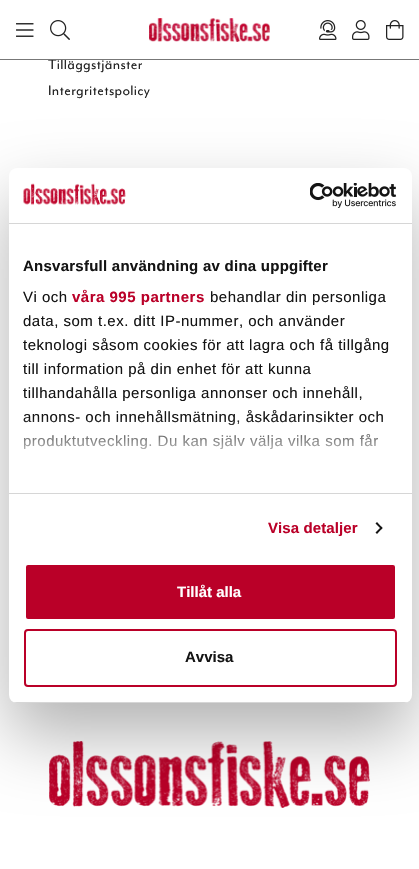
#include "include/core/SkBlurTypes.h"
#include "include/core/SkCanvas.h"
#include "include/core/SkData.h"
#include "include/core/SkFont.h"
#include "include/core/SkFontMgr.h"
#include "include/core/SkImage.h"
#include "include/core/SkMaskFilter.h"
#include "include/core/SkPaint.h"
#include "include/core/SkPathBuilder.h"
#include "include/core/SkTextBlob.h"
#include "include/effects/SkDashPathEffect.h"
#include "include/effects/SkGradientShader.h"
#include "include/utils/SkParsePath.h"

extern sk_sp<SkFontMgr> fontMgr;

void draw(SkCanvas* canvas) {
  SkPaint p;
  p.setAntiAlias(true);
  auto spacedText = [&](const char* s, float x, float y, const SkFont& font, const SkPaint& ink, float letter, float word) {
    std::vector<SkGlyphID> glyphs(font.countText(s, strlen(s), SkTextEncoding::kUTF8));
    std::vector<float> xs(glyphs.size());
    font.textToGlyphs(s, strlen(s), SkTextEncoding::kUTF8, glyphs);
    font.getXPos(glyphs, xs, x);
    float extra = 0;
    for (size_t i = 0; i < glyphs.size(); i++) {
      xs[i] += extra;
      extra += letter + word * (glyphs[i] == font.unicharToGlyph(' '));
    }
    canvas->drawTextBlob(SkTextBlob::MakeFromPosHGlyphs(glyphs, xs, y, font), 0, 0, ink);
  };
  canvas->clear(SK_ColorWHITE);
  canvas->drawImageRect(SkImages::DeferredFromEncodedData(SkData::MakeFromFileName("images/1.png")), SkRect::MakeLTRB(16, 23, 34, 37), SkSamplingOptions());
  canvas->drawImageRect(SkImages::DeferredFromEncodedData(SkData::MakeFromFileName("images/2.png")), SkRect::MakeLTRB(50, 20, 70, 40), SkSamplingOptions());
  canvas->drawImageRect(SkImages::DeferredFromEncodedData(SkData::MakeFromFileName("images/3.png")), SkRect::MakeLTRB(149, 18, 270, 42), SkSamplingOptions());
  canvas->drawImageRect(SkImages::DeferredFromEncodedData(SkData::MakeFromFileName("images/4.png")), SkRect::MakeLTRB(319, 20, 337, 40), SkSamplingOptions());
  canvas->drawImageRect(SkImages::DeferredFromEncodedData(SkData::MakeFromFileName("images/5.png")), SkRect::MakeLTRB(352, 20, 370, 40), SkSamplingOptions());
  canvas->drawImageRect(SkImages::DeferredFromEncodedData(SkData::MakeFromFileName("images/6.png")), SkRect::MakeLTRB(386, 20, 404, 40), SkSamplingOptions());
  canvas->drawImageRect(SkImages::DeferredFromEncodedData(SkData::MakeFromFileName("images/7.png")), SkRect::MakeLTRB(49, 741, 370, 808), SkSamplingOptions());
  p.setColor(SkColorSetARGB(77, 0, 0, 0));
  p.setMaskFilter(SkMaskFilter::MakeBlur(kNormal_SkBlurStyle, 34));
  canvas->drawRoundRect(SkRect::MakeLTRB(9, 200, 412, 735), 8, 8, p);
  p.setMaskFilter(nullptr);
  p.setColor(SK_ColorWHITE);
  canvas->drawRoundRect(SkRect::MakeLTRB(9, 168, 412, 703), 8, 8, p);
  p.setColor(SkColorSetRGB(214, 214, 214));
  canvas->drawRect(SkRect::MakeLTRB(9, 223, 412, 224), p);
  canvas->drawImageRect(SkImages::DeferredFromEncodedData(SkData::MakeFromFileName("images/8.png")), SkRect::MakeLTRB(23, 183, 126, 206), SkSamplingOptions());
  canvas->drawImageRect(SkImages::DeferredFromEncodedData(SkData::MakeFromFileName("images/9.png")), SkRect::MakeLTRB(310, 183, 397, 208), SkSamplingOptions());
  canvas->drawRect(SkRect::MakeLTRB(9, 493, 412, 494), p);
  p.setColor(SkColorSetRGB(20, 20, 20));
  canvas->drawPath(SkPathBuilder().moveTo(377, 522).lineTo(382.5f, 528).lineTo(381.5f, 529.5f).lineTo(375.5f, 523.5f).close().detach(), p);
  canvas->drawPath(SkPathBuilder().moveTo(381.5f, 526.5f).lineTo(382.5f, 528).lineTo(377, 534).lineTo(375.5f, 532.5f).close().detach(), p);
  canvas->save();
  canvas->clipPath(SkPathBuilder().moveTo(17, 168).lineTo(404, 168).cubicTo(408.5f, 168, 412, 171.5f, 412, 176).lineTo(412, 695).cubicTo(412, 699.5f, 408.5f, 703, 404, 703).lineTo(17, 703).cubicTo(12.5f, 703, 9, 699.5f, 9, 695).lineTo(9, 176).cubicTo(9, 171.5f, 12.5f, 168, 17, 168).close().detach(), true);
  p.setColor(SkColorSetRGB(214, 214, 214));
  canvas->drawRect(SkRect::MakeLTRB(9, 702, 412, 703), p);
  canvas->restore();
  p.setColor(SkColorSetRGB(186, 0, 40));
  canvas->drawRoundRect(SkRect::MakeLTRB(25, 564, 396, 620), 3, 3, p);
  p.setStyle(SkPaint::kStroke_Style);
  p.setStrokeWidth(2);
  p.setColor(SK_ColorWHITE);
  canvas->drawRoundRect(SkRect::MakeLTRB(25, 564, 396, 620), 3, 3, p);
  p.setColor(SkColorSetRGB(186, 0, 40));
  canvas->drawRoundRect(SkRect::MakeLTRB(25, 630, 396, 686), 3, 3, p);
  SkFont font1(fontMgr->matchFamilyStyle("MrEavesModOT", SkFontStyle::Normal()), 16);
  font1.setSubpixel(true);
  p.setStyle(SkPaint::kFill_Style);
  p.setColor(SkColorSetRGB(34, 34, 34));
  spacedText("Tilläggstjänster", 48, 69, font1, p, 0.3f, 0);
  p.setColor(SkColorSetRGB(119, 119, 119));
  canvas->drawRect(SkRect::MakeLTRB(0, 59, 419, 60), p);
  p.setColor(SkColorSetRGB(34, 34, 34));
  spacedText("Intergritetspolicy", 48, 95, font1, p, 0.3f, 0);
  SkFont font2(fontMgr->matchFamilyStyle("Liberation Sans", SkFontStyle::Bold()), 15);
  font2.setSubpixel(true);
  p.setColor(SkColorSetRGB(20, 20, 20));
  spacedText("Ansvarsfull användning av dina uppgifter", 23, 271, font2, p, 0.25f, 0);
  SkFont font3(fontMgr->matchFamilyStyle("Liberation Sans", SkFontStyle::Normal()), 15);
  font3.setSubpixel(true);
  spacedText("Vi och", 23, 302, font3, p, 0.5f, 0);
  p.setColor(SkColorSetRGB(186, 0, 40));
  spacedText("våra 995 partners", 72, 302, font2, p, 0.5f, 0);
  p.setColor(SkColorSetRGB(20, 20, 20));
  spacedText("behandlar din personliga", 210, 302, font3, p, 0.5f, 0);
  spacedText("data, som t.ex. ditt IP-nummer, och använder", 23, 326, font3, p, 0.5f, 0);
  spacedText("teknologi såsom cookies för att lagra och få tillgång", 23, 350, font3, p, 0.5f, 0);
  spacedText("till information på din enhet för att kunna", 23, 374, font3, p, 0.5f, 0);
  spacedText("tillhandahålla personliga annonser och innehåll,", 23, 398, font3, p, 0.5f, 0);
  spacedText("annons- och innehållsmätning, åskådarinsikter och", 23, 422, font3, p, 0.5f, 0);
  spacedText("produktutveckling. Du kan själv välja vilka som får", 23, 446, font3, p, 0.5f, 0);
  {
    const SkColor colors[] = {SK_ColorWHITE, SkColorSetARGB(204, 255, 255, 255), SkColorSetARGB(0, 255, 255, 255)};
    const float stops[] = {0, 0.5f, 1};
    const SkPoint ends[] = {{204, 493}, {204, 418}};
    p.setShader(SkGradientShader::MakeLinear(ends, colors, stops, 3, SkTileMode::kClamp));
    p.setAlpha(255);
  }
  canvas->drawRect(SkRect::MakeLTRB(23, 419, 383, 450), p);
  p.setShader(nullptr);
  p.setColor(SkColorSetRGB(186, 0, 40));
  spacedText("Visa detaljer", 268, 533, font2, p, 0.1f, 0);
  p.setColor(SK_ColorWHITE);
  canvas->drawString("Tillåt alla", 177, 597, font2, p);
  p.setColor(SkColorSetRGB(20, 20, 20));
  canvas->drawString("Avvisa", 185, 662, font2, p);
}
